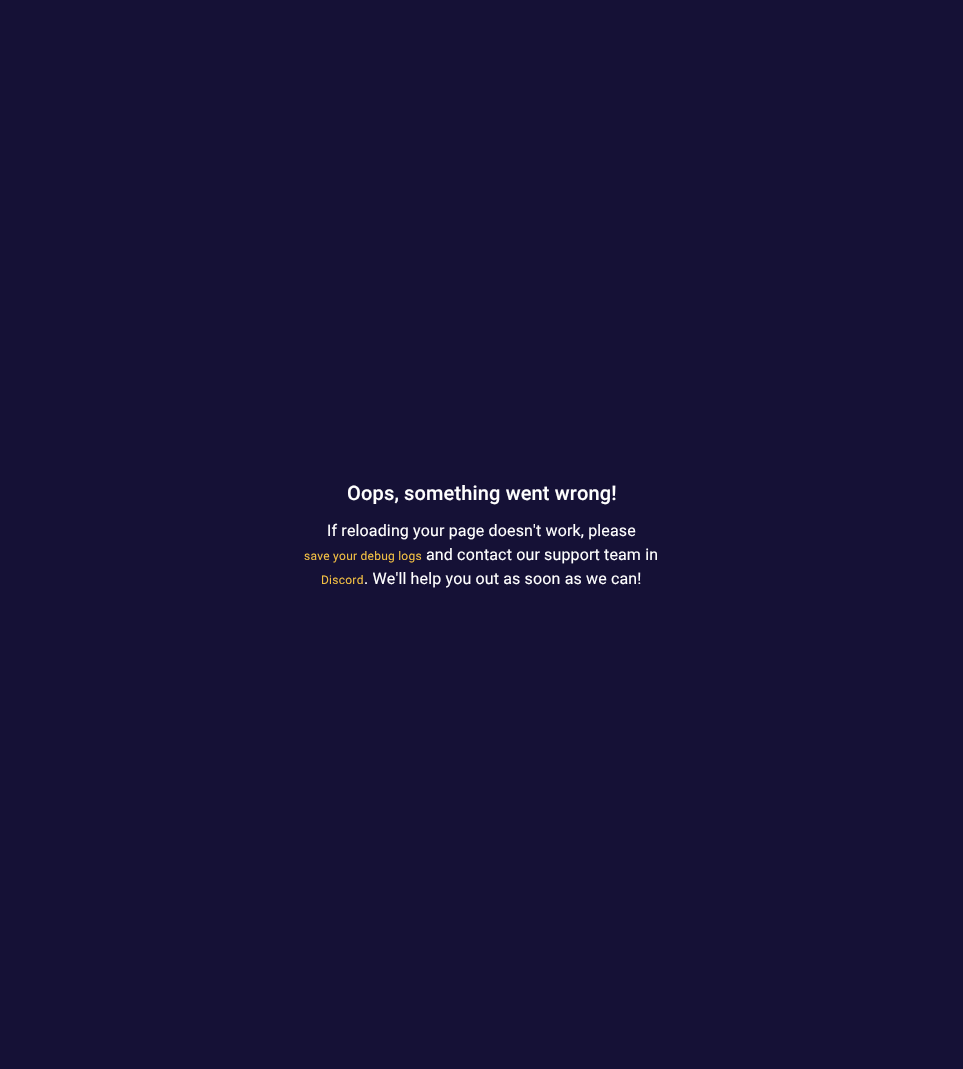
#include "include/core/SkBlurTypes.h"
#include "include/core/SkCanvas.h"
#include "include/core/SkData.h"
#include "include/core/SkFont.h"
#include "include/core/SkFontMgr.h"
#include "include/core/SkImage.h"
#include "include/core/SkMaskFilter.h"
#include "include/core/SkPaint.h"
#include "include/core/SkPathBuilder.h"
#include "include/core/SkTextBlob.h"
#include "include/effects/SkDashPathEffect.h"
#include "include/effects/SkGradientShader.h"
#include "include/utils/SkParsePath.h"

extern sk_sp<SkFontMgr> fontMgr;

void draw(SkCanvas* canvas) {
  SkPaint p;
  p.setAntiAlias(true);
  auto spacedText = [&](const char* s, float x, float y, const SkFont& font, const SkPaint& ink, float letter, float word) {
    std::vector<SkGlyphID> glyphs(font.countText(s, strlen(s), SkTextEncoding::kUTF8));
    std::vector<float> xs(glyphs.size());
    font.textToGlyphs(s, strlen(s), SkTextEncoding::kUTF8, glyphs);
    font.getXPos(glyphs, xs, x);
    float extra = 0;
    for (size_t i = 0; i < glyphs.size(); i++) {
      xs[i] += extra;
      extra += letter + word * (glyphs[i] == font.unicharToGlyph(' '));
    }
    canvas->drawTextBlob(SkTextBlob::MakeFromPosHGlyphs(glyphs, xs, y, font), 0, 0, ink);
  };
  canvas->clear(SkColorSetRGB(21, 17, 54));
  SkFont font1(fontMgr->matchFamilyStyle("Roboto", SkFontStyle(500, SkFontStyle::kNormal_Width, SkFontStyle::kUpright_Slant)), 20);
  font1.setSubpixel(true);
  p.setColor(SK_ColorWHITE);
  spacedText("Oops, something went wrong!", 347, 500, font1, p, 0.15f, 0);
  SkFont font2(fontMgr->matchFamilyStyle("Roboto", SkFontStyle::Normal()), 16);
  font2.setSubpixel(true);
  spacedText("If reloading your page doesn't work, please", 327, 536, font2, p, 0.15f, 0);
  SkFont font3(fontMgr->matchFamilyStyle("Roboto", SkFontStyle::Normal()), 12);
  font3.setSubpixel(true);
  p.setColor(SkColorSetRGB(242, 191, 67));
  spacedText("save your debug logs", 304, 560, font3, p, 0.25f, 0);
  p.setColor(SK_ColorWHITE);
  spacedText("and contact our support team in", 426, 560, font2, p, 0.15f, 0);
  p.setColor(SkColorSetRGB(242, 191, 67));
  spacedText("Discord", 321, 584, font3, p, 0.25f, 0);
  p.setColor(SK_ColorWHITE);
  spacedText(". We'll help you out as soon as we can!", 364, 584, font2, p, 0.15f, 0);
}
